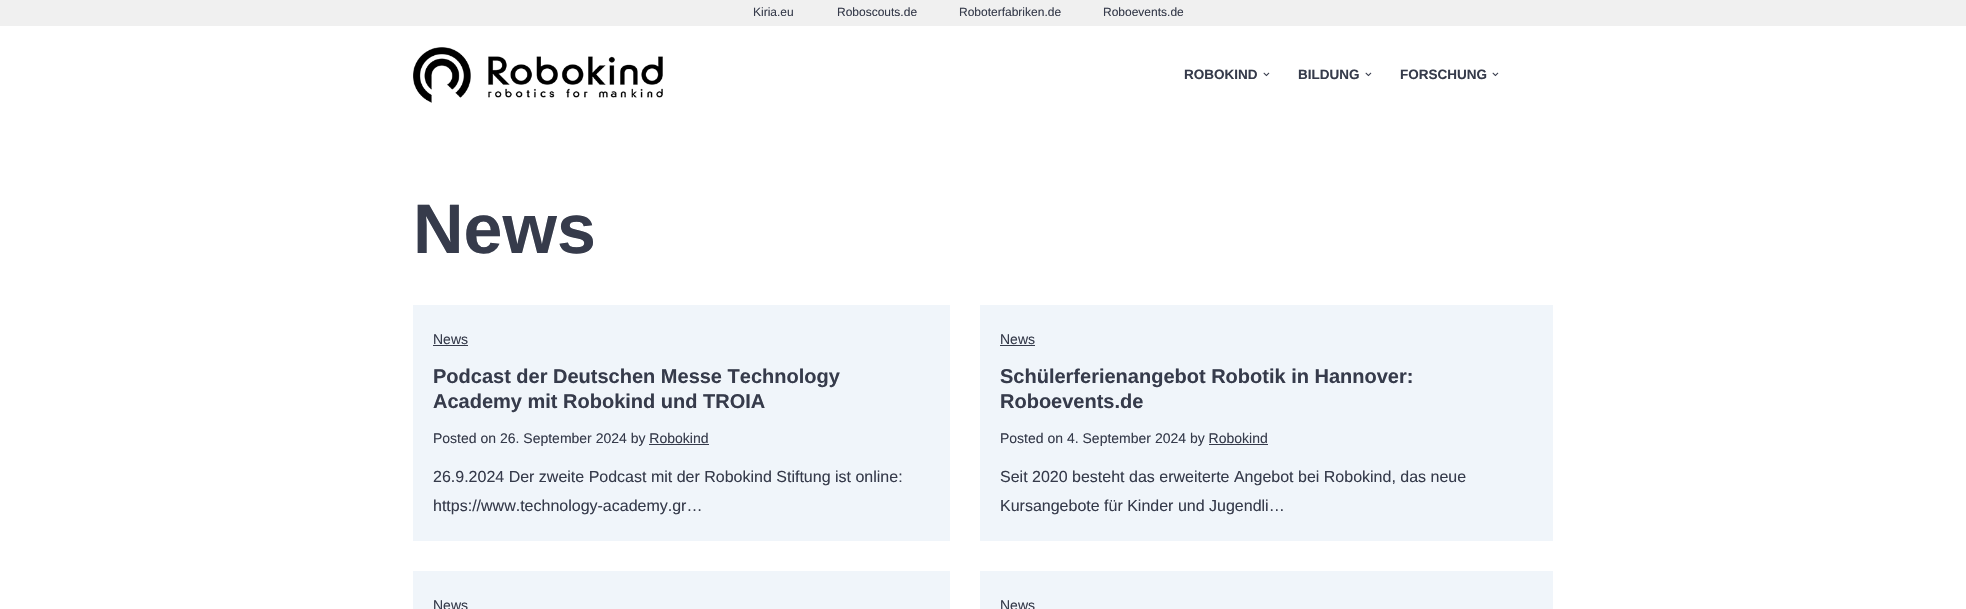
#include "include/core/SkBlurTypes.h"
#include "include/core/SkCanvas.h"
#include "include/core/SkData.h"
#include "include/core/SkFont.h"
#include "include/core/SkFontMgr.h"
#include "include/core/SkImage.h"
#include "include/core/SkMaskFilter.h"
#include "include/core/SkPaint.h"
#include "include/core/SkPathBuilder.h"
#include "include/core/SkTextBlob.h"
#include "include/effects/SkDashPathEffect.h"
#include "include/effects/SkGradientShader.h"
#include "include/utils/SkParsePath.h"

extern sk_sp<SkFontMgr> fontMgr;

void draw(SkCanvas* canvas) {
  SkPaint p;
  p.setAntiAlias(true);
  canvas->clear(SK_ColorWHITE);
  p.setColor(SkColorSetRGB(240, 240, 240));
  canvas->drawRect(SkRect::MakeLTRB(0, 0, 1966, 26), p);
  canvas->drawImageRect(SkImages::DeferredFromEncodedData(SkData::MakeFromFileName("images/1.png")), SkRect::MakeLTRB(413, 47, 663, 103), SkSamplingOptions());
  canvas->drawImageRect(SkImages::DeferredFromEncodedData(SkData::MakeFromFileName("images/2.png")), SkRect::MakeLTRB(1263, 72, 1270, 77), SkSamplingOptions());
  canvas->drawImageRect(SkImages::DeferredFromEncodedData(SkData::MakeFromFileName("images/2.png")), SkRect::MakeLTRB(1365, 72, 1372, 77), SkSamplingOptions());
  canvas->drawImageRect(SkImages::DeferredFromEncodedData(SkData::MakeFromFileName("images/2.png")), SkRect::MakeLTRB(1492, 72, 1499, 77), SkSamplingOptions());
  p.setColor(SkColorSetRGB(240, 245, 250));
  canvas->drawRect(SkRect::MakeLTRB(413, 305, 950, 541), p);
  p.setColor(SkColorSetRGB(54, 59, 75));
  canvas->drawRect(SkRect::MakeLTRB(433, 345, 468, 346), p);
  canvas->drawRect(SkRect::MakeLTRB(649, 444, 709, 445), p);
  p.setColor(SkColorSetRGB(240, 245, 250));
  canvas->drawRect(SkRect::MakeLTRB(980, 305, 1553, 541), p);
  p.setColor(SkColorSetRGB(54, 59, 75));
  canvas->drawRect(SkRect::MakeLTRB(1000, 345, 1035, 346), p);
  canvas->drawRect(SkRect::MakeLTRB(1209, 444, 1268, 445), p);
  p.setColor(SkColorSetRGB(240, 245, 250));
  canvas->drawRect(SkRect::MakeLTRB(413, 571, 950, 609), p);
  canvas->drawRect(SkRect::MakeLTRB(980, 571, 1553, 609), p);
  SkFont font1(fontMgr->matchFamilyStyle("Liberation Sans", SkFontStyle::Normal()), 12);
  font1.setSubpixel(true);
  p.setColor(SkColorSetRGB(54, 59, 75));
  canvas->drawString("Kiria.eu", 753, 16, font1, p);
  canvas->drawString("Roboscouts.de", 837, 16, font1, p);
  canvas->drawString("Roboterfabriken.de", 959, 16, font1, p);
  canvas->drawString("Roboevents.de", 1103, 16, font1, p);
  SkFont font2(fontMgr->matchFamilyStyle("Liberation Sans", SkFontStyle::Bold()), 13.5f);
  font2.setSubpixel(true);
  canvas->drawString("ROBOKIND", 1184, 79, font2, p);
  canvas->drawString("BILDUNG", 1298, 79, font2, p);
  canvas->drawString("FORSCHUNG", 1400, 79, font2, p);
  SkFont font3(fontMgr->matchFamilyStyle("Liberation Sans", SkFontStyle::Bold()), 70);
  font3.setSubpixel(true);
  canvas->drawString("News", 413, 253, font3, p);
  SkFont font4(fontMgr->matchFamilyStyle("Liberation Sans", SkFontStyle::Normal()), 14);
  font4.setSubpixel(true);
  canvas->drawString("News", 433, 344, font4, p);
  SkFont font5(fontMgr->matchFamilyStyle("Liberation Sans", SkFontStyle::Bold()), 20);
  font5.setSubpixel(true);
  canvas->drawString("Podcast der Deutschen Messe Technology", 433, 383, font5, p);
  canvas->drawString("Academy mit Robokind und TROIA", 433, 408, font5, p);
  canvas->drawString("Posted on 26. September 2024 by Robokind", 433, 443, font4, p);
  SkFont font6(fontMgr->matchFamilyStyle("Liberation Sans", SkFontStyle::Normal()), 16);
  font6.setSubpixel(true);
  canvas->drawString("26.9.2024 Der zweite Podcast mit der Robokind Stiftung ist online:", 433, 482, font6, p);
  canvas->drawString("https://www.technology-academy.gr…", 433, 511, font6, p);
  canvas->drawString("News", 1000, 344, font4, p);
  canvas->drawString("Schülerferienangebot Robotik in Hannover:", 1000, 383, font5, p);
  canvas->drawString("Roboevents.de", 1000, 408, font5, p);
  canvas->drawString("Posted on 4. September 2024 by Robokind", 1000, 443, font4, p);
  canvas->drawString("Seit 2020 besteht das erweiterte Angebot bei Robokind, das neue", 1000, 482, font6, p);
  canvas->drawString("Kursangebote für Kinder und Jugendli…", 1000, 511, font6, p);
  canvas->drawString("News", 433, 610, font4, p);
  canvas->drawString("News", 1000, 610, font4, p);
}
